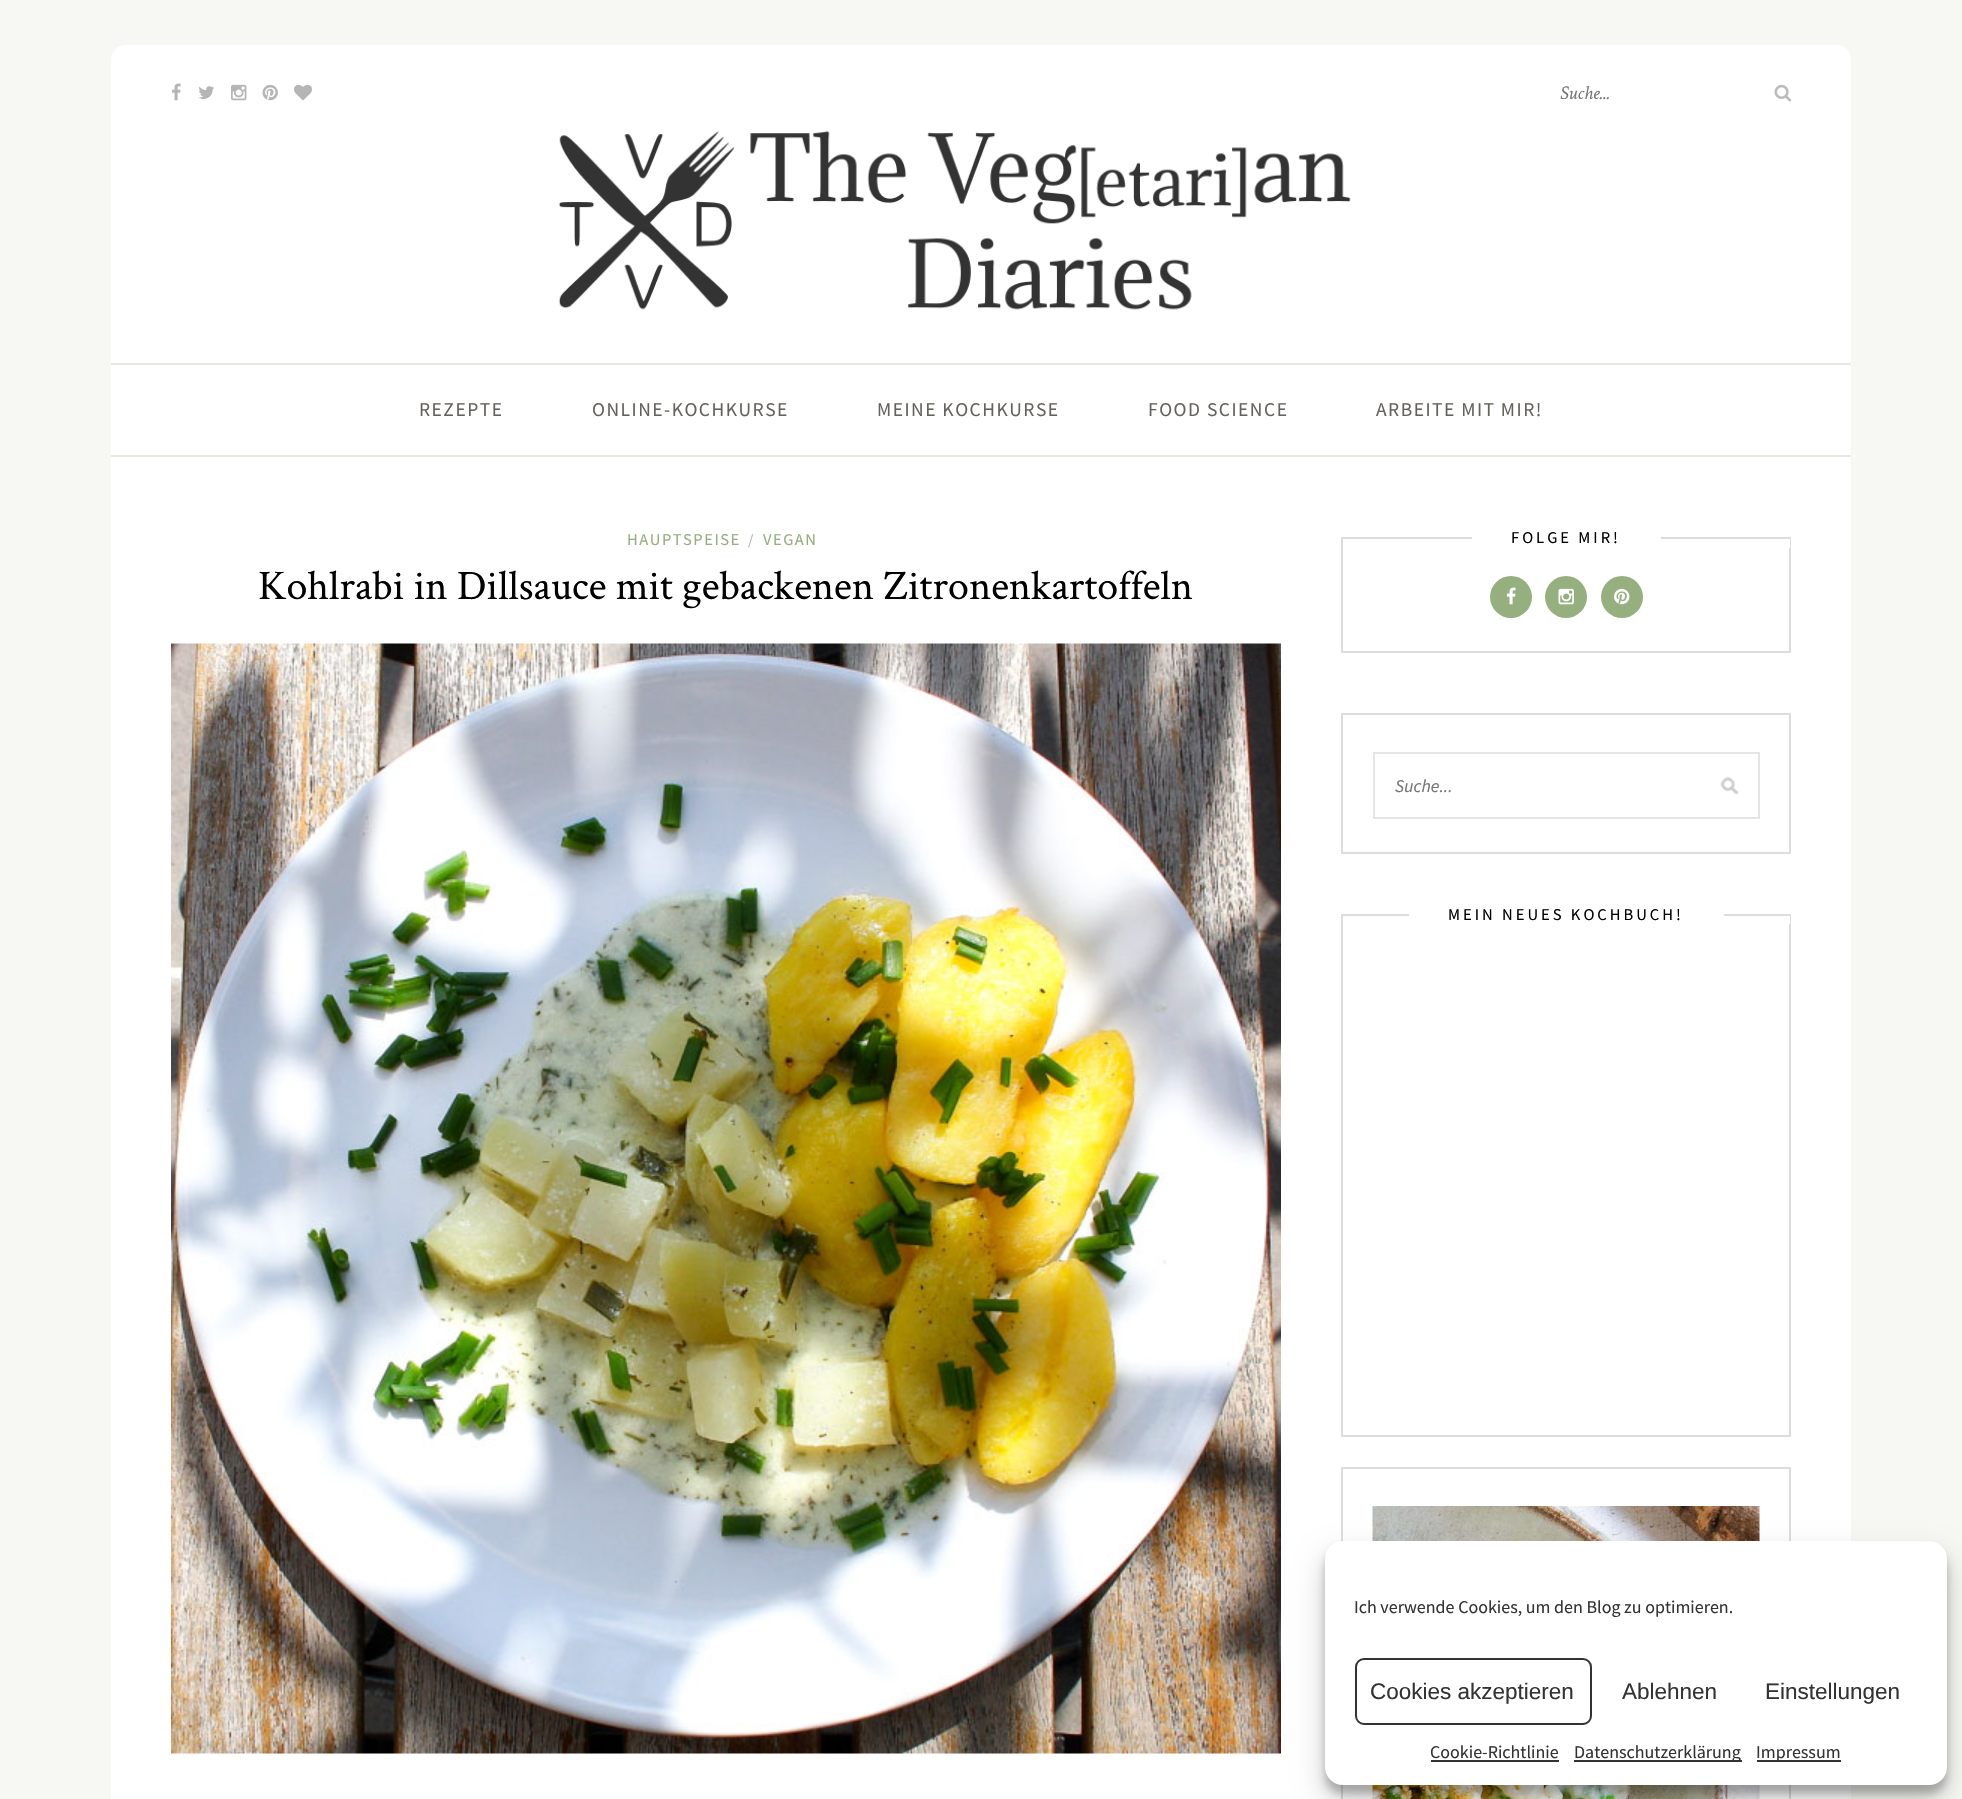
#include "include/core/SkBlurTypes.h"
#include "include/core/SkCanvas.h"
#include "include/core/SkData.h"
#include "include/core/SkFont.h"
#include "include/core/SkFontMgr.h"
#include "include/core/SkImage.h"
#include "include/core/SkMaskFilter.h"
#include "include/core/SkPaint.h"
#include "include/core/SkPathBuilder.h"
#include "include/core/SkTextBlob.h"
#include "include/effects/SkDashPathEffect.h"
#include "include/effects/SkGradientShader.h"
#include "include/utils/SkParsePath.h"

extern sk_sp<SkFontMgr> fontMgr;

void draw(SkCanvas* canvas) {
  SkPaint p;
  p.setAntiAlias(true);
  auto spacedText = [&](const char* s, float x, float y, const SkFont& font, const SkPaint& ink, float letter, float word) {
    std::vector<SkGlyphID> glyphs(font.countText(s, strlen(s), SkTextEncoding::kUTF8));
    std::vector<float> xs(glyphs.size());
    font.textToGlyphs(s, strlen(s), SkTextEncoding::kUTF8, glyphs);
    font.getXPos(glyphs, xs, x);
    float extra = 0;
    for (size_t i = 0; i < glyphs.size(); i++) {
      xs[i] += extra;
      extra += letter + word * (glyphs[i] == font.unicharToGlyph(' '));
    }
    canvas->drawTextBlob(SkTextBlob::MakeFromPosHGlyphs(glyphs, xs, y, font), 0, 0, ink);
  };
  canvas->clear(SkColorSetRGB(247, 247, 243));
  p.setColor(SK_ColorWHITE);
  canvas->drawRoundRect(SkRect::MakeLTRB(111, 45, 1851, 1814), 15, 15, p);
  canvas->drawImageRect(SkImages::DeferredFromEncodedData(SkData::MakeFromFileName("images/1.png")), SkRect::MakeLTRB(172, 83, 181, 101), SkSamplingOptions());
  canvas->drawImageRect(SkImages::DeferredFromEncodedData(SkData::MakeFromFileName("images/2.png")), SkRect::MakeLTRB(198, 86, 214, 99), SkSamplingOptions());
  canvas->drawImageRect(SkImages::DeferredFromEncodedData(SkData::MakeFromFileName("images/3.png")), SkRect::MakeLTRB(231, 84, 247, 101), SkSamplingOptions());
  canvas->drawImageRect(SkImages::DeferredFromEncodedData(SkData::MakeFromFileName("images/4.png")), SkRect::MakeLTRB(262, 84, 278, 101), SkSamplingOptions());
  canvas->drawImageRect(SkImages::DeferredFromEncodedData(SkData::MakeFromFileName("images/5.png")), SkRect::MakeLTRB(294, 84, 312, 101), SkSamplingOptions());
  canvas->drawImageRect(SkImages::DeferredFromEncodedData(SkData::MakeFromFileName("images/6.png")), SkRect::MakeLTRB(1774, 84, 1792, 102), SkSamplingOptions());
  canvas->drawImageRect(SkImages::DeferredFromEncodedData(SkData::MakeFromFileName("images/7.png")), SkRect::MakeLTRB(558, 131, 1351, 310), SkSamplingOptions());
  p.setColor(SkColorSetRGB(234, 232, 224));
  canvas->drawRect(SkRect::MakeLTRB(111, 363, 1851, 365), p);
  canvas->drawRect(SkRect::MakeLTRB(111, 455, 1851, 457), p);
  canvas->drawImageRect(SkImages::DeferredFromEncodedData(SkData::MakeFromFileName("images/8.png")), SkRect::MakeLTRB(171, 643, 1281, 1754), SkSamplingOptions());
  p.setStyle(SkPaint::kStroke_Style);
  p.setStrokeWidth(2);
  p.setColor(SkColorSetRGB(221, 221, 221));
  canvas->drawRect(SkRect::MakeLTRB(1342, 538, 1790, 652), p);
  p.setStyle(SkPaint::kFill_Style);
  p.setColor(SK_ColorWHITE);
  canvas->drawRect(SkRect::MakeLTRB(1343, 537, 1790, 548), p);
  p.setColor(SkColorSetRGB(221, 221, 221));
  canvas->drawRect(SkRect::MakeLTRB(1343, 537, 1472, 539), p);
  canvas->drawRect(SkRect::MakeLTRB(1661, 537, 1790, 539), p);
  p.setColor(SkColorSetRGB(149, 175, 126));
  canvas->drawCircle(1511, 597, 21, p);
  canvas->drawImageRect(SkImages::DeferredFromEncodedData(SkData::MakeFromFileName("images/9.png")), SkRect::MakeLTRB(1506, 587, 1516, 605), SkSamplingOptions());
  canvas->drawCircle(1566, 597, 21, p);
  canvas->drawImageRect(SkImages::DeferredFromEncodedData(SkData::MakeFromFileName("images/10.png")), SkRect::MakeLTRB(1558, 588, 1574, 605), SkSamplingOptions());
  canvas->drawCircle(1622, 597, 21, p);
  canvas->drawImageRect(SkImages::DeferredFromEncodedData(SkData::MakeFromFileName("images/11.png")), SkRect::MakeLTRB(1614, 588, 1630, 605), SkSamplingOptions());
  p.setStyle(SkPaint::kStroke_Style);
  p.setColor(SkColorSetRGB(221, 221, 221));
  canvas->drawRect(SkRect::MakeLTRB(1342, 714, 1790, 853), p);
  canvas->drawImageRect(SkImages::DeferredFromEncodedData(SkData::MakeFromFileName("images/12.png")), SkRect::MakeLTRB(1720, 776, 1739, 795), SkSamplingOptions());
  p.setColor(SkColorSetRGB(229, 229, 229));
  canvas->drawRect(SkRect::MakeLTRB(1374, 753, 1759, 818), p);
  p.setColor(SkColorSetRGB(221, 221, 221));
  canvas->drawRect(SkRect::MakeLTRB(1342, 915, 1790, 1436), p);
  p.setStyle(SkPaint::kFill_Style);
  p.setColor(SK_ColorWHITE);
  canvas->drawRect(SkRect::MakeLTRB(1343, 914, 1790, 924), p);
  p.setColor(SkColorSetRGB(221, 221, 221));
  canvas->drawRect(SkRect::MakeLTRB(1343, 914, 1409, 916), p);
  canvas->drawRect(SkRect::MakeLTRB(1724, 914, 1790, 916), p);
  p.setStyle(SkPaint::kStroke_Style);
  canvas->drawRect(SkRect::MakeLTRB(1342, 1468, 1790, 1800), p);
  canvas->drawImageRect(SkImages::DeferredFromEncodedData(SkData::MakeFromFileName("images/13.png")), SkRect::MakeLTRB(1372, 1506, 1760, 1799), SkSamplingOptions());
  p.setStyle(SkPaint::kFill_Style);
  p.setColor(SkColorSetARGB(59, 0, 0, 0));
  p.setMaskFilter(SkMaskFilter::MakeBlur(kNormal_SkBlurStyle, 4.5f));
  canvas->drawRoundRect(SkRect::MakeLTRB(1325, 1550, 1947, 1794), 18, 18, p);
  p.setMaskFilter(nullptr);
  p.setColor(SkColorSetARGB(48, 0, 0, 0));
  p.setMaskFilter(SkMaskFilter::MakeBlur(kNormal_SkBlurStyle, 15));
  canvas->drawRoundRect(SkRect::MakeLTRB(1325, 1556, 1947, 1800), 18, 18, p);
  p.setMaskFilter(nullptr);
  p.setColor(SK_ColorWHITE);
  canvas->drawRoundRect(SkRect::MakeLTRB(1325, 1541, 1947, 1785), 18, 18, p);
  p.setStyle(SkPaint::kStroke_Style);
  p.setColor(SkColorSetRGB(51, 51, 51));
  canvas->drawRoundRect(SkRect::MakeLTRB(1356, 1659, 1591, 1724), 8, 8, p);
  p.setStyle(SkPaint::kFill_Style);
  canvas->drawRect(SkRect::MakeLTRB(1431, 1760, 1559, 1762), p);
  canvas->drawRect(SkRect::MakeLTRB(1574, 1760, 1742, 1762), p);
  canvas->drawRect(SkRect::MakeLTRB(1757, 1760, 1841, 1762), p);
  SkFont font1(fontMgr->matchFamilyStyle("Crimson Text", SkFontStyle::Italic()), 19.5f);
  font1.setSubpixel(true);
  p.setColor(SkColorSetRGB(117, 117, 117));
  canvas->drawString("Suche...", 1560, 99, font1, p);
  SkFont font2(fontMgr->matchFamilyStyle("Source Sans Pro", SkFontStyle::Normal()), 19.5f);
  font2.setSubpixel(true);
  p.setColor(SkColorSetRGB(101, 98, 93));
  spacedText("REZEPTE", 419, 416, font2, p, 1.5f, 0);
  spacedText("ONLINE-KOCHKURSE", 592, 416, font2, p, 1.5f, 0);
  spacedText("MEINE KOCHKURSE", 877, 416, font2, p, 1.5f, 0);
  spacedText("FOOD SCIENCE", 1148, 416, font2, p, 1.5f, 0);
  spacedText("ARBEITE MIT MIR!", 1376, 416, font2, p, 1.5f, 0);
  SkFont font3(fontMgr->matchFamilyStyle("Source Sans Pro", SkFontStyle::Normal()), 16.5f);
  font3.setSubpixel(true);
  p.setColor(SkColorSetRGB(149, 175, 126));
  spacedText("HAUPTSPEISE", 627, 545, font3, p, 1.5f, 0);
  SkFont font4(fontMgr->matchFamilyStyle("Source Sans Pro", SkFontStyle::Normal()), 15);
  font4.setSubpixel(true);
  p.setColor(SkColorSetRGB(181, 181, 181));
  canvas->drawString("/", 748, 545, font4, p);
  p.setColor(SkColorSetRGB(149, 175, 126));
  spacedText("VEGAN", 763, 545, font3, p, 1.5f, 0);
  SkFont font5(fontMgr->matchFamilyStyle("Crimson Text", SkFontStyle::Normal()), 42);
  font5.setSubpixel(true);
  p.setColor(SK_ColorBLACK);
  canvas->drawString("Kohlrabi in Dillsauce mit gebackenen Zitronenkartoffeln", 258, 599, font5, p);
  spacedText("FOLGE MIR!", 1511, 543, font3, p, 3, 0);
  SkFont font6(fontMgr->matchFamilyStyle("Source Sans Pro", SkFontStyle::Italic()), 18);
  font6.setSubpixel(true);
  p.setColor(SkColorSetRGB(117, 117, 117));
  canvas->drawString("Suche...", 1395, 792, font6, p);
  p.setColor(SK_ColorBLACK);
  spacedText("MEIN NEUES KOCHBUCH!", 1448, 920, font3, p, 3, 0);
  SkFont font7(fontMgr->matchFamilyStyle("Source Sans Pro", SkFontStyle::Normal()), 18);
  font7.setSubpixel(true);
  p.setColor(SkColorSetRGB(51, 51, 51));
  canvas->drawString("Ich verwende Cookies, um den Blog zu optimieren.", 1354, 1613, font7, p);
  SkFont font8(fontMgr->matchFamilyStyle("Liberation Sans", SkFontStyle::Normal()), 22.5f);
  font8.setSubpixel(true);
  canvas->drawString("Cookies akzeptieren", 1370, 1699, font8, p);
  canvas->drawString("Ablehnen", 1622, 1699, font8, p);
  canvas->drawString("Einstellungen", 1765, 1699, font8, p);
  canvas->drawString("Cookie-Richtlinie", 1430, 1758, font7, p);
  canvas->drawString("Datenschutzerklärung", 1574, 1758, font7, p);
  canvas->drawString("Impressum", 1756, 1758, font7, p);
}
